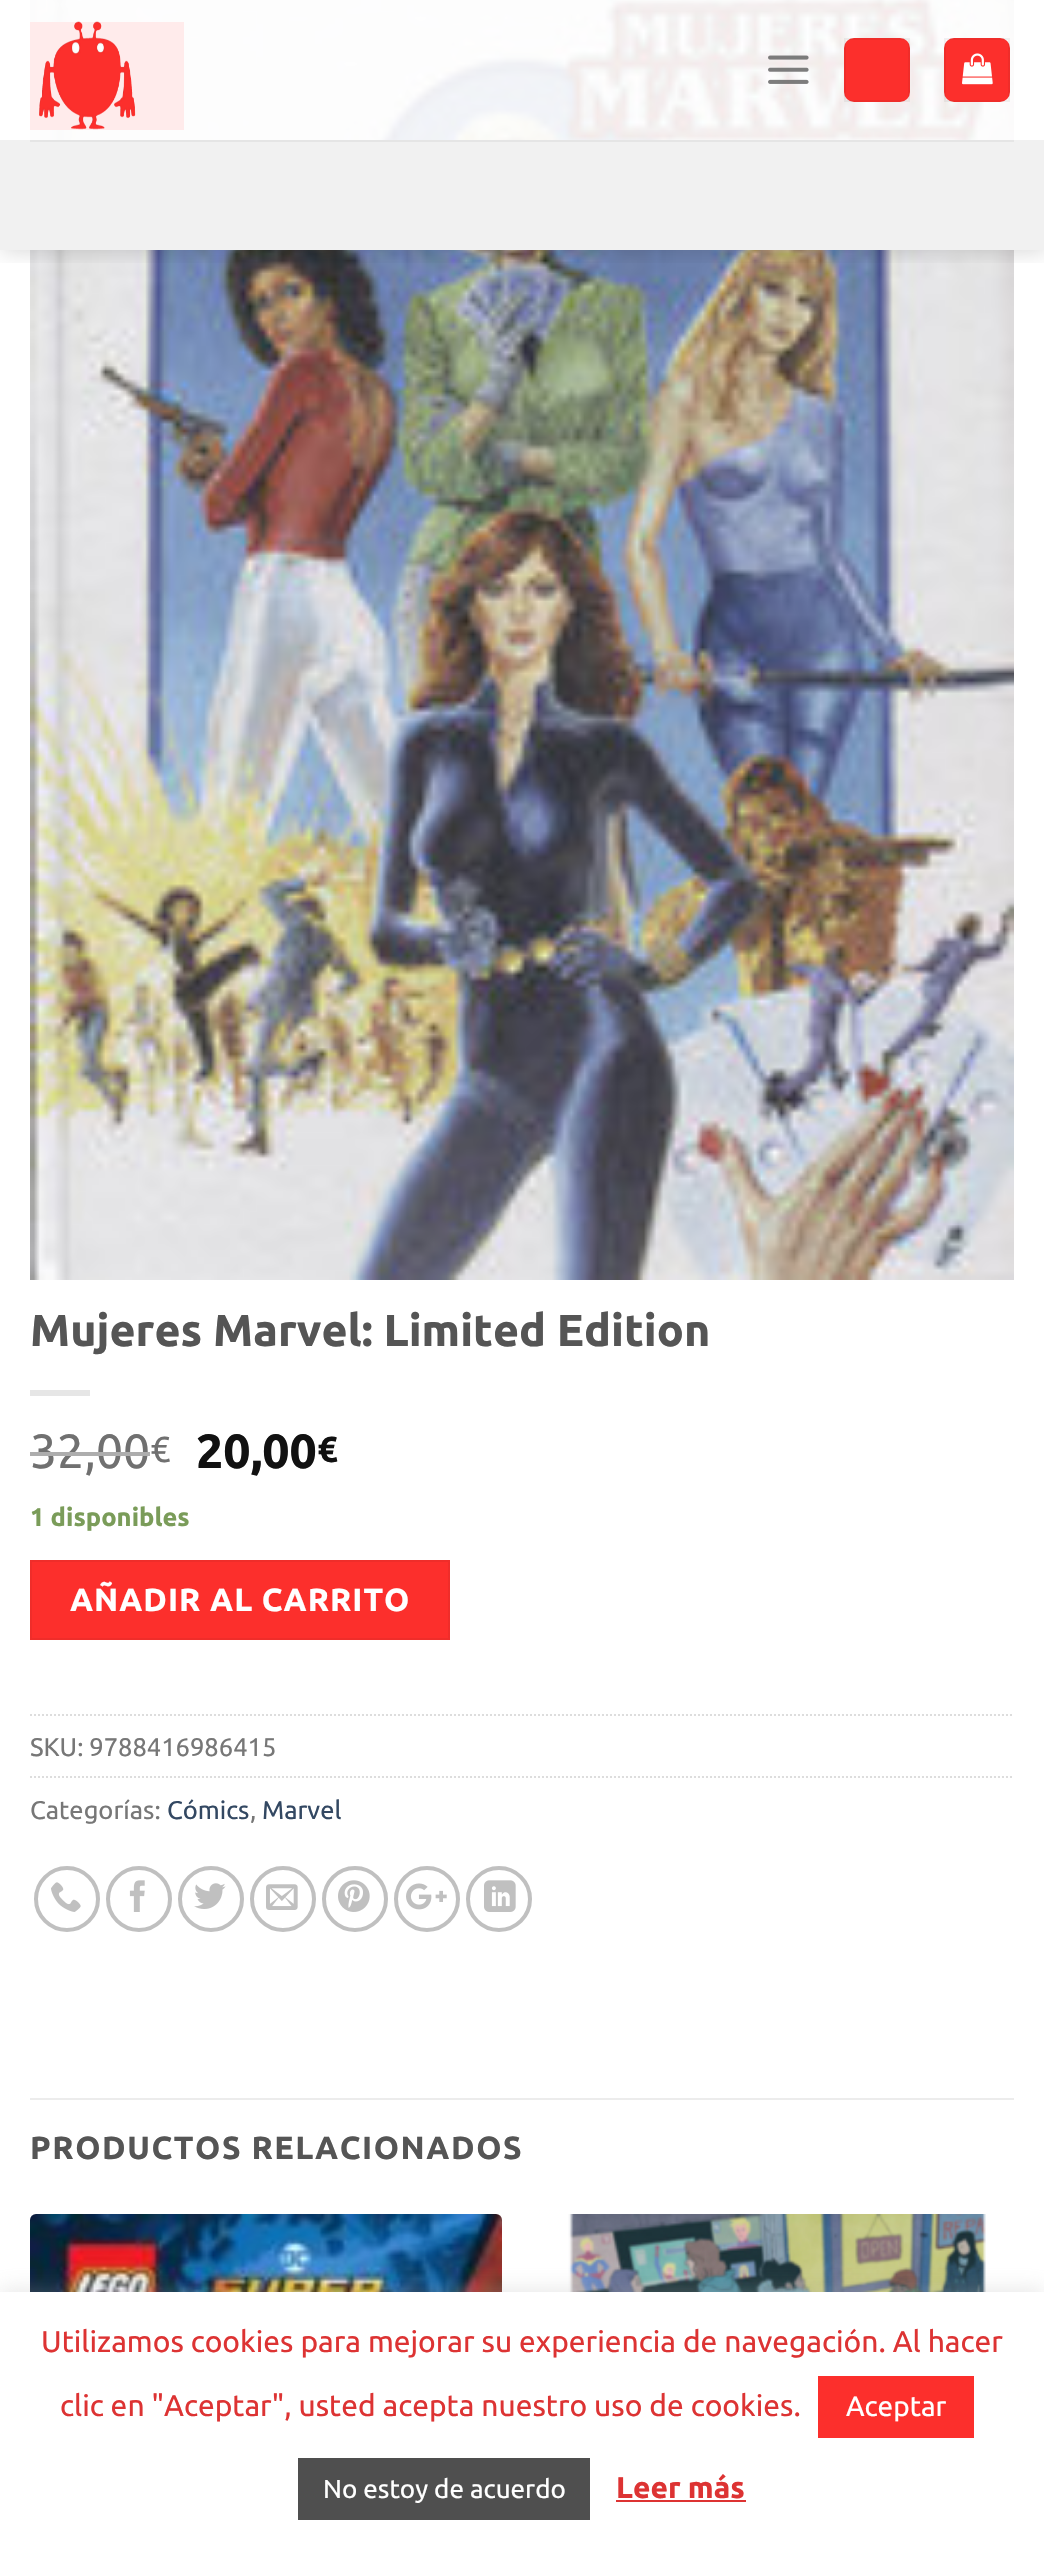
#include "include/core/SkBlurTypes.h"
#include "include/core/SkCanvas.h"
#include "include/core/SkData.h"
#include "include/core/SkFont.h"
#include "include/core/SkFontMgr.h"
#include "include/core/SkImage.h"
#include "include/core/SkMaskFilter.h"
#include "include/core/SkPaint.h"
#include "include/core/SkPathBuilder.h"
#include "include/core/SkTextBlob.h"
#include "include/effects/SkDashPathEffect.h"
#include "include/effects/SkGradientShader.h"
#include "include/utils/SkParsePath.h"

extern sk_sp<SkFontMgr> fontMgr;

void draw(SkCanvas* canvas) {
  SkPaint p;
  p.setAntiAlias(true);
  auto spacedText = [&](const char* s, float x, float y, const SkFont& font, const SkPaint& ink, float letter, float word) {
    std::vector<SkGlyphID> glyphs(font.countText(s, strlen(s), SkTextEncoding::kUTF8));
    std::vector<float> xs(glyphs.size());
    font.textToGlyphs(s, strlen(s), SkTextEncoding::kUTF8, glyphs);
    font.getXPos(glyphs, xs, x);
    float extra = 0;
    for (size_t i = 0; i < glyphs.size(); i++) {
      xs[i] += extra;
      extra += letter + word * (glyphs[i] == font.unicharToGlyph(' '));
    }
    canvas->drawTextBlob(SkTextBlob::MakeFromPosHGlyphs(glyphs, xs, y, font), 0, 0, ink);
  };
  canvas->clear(SK_ColorWHITE);
  canvas->drawImageRect(SkImages::DeferredFromEncodedData(SkData::MakeFromFileName("images/4.png")), SkRect::MakeLTRB(30, 0, 1014, 1280), SkSamplingOptions());
  p.setColor(SkColorSetRGB(252, 47, 44));
  canvas->drawRect(SkRect::MakeLTRB(30, 22, 184, 130), p);
  canvas->save();
  canvas->clipRect(SkRect::MakeLTRB(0, 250, 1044, 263));
  p.setColor(SkColorSetARGB(38, 0, 0, 0));
  p.setMaskFilter(SkMaskFilter::MakeBlur(kNormal_SkBlurStyle, 10));
  canvas->drawRect(SkRect::MakeLTRB(2, 2, 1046, 252), p);
  p.setMaskFilter(nullptr);
  canvas->restore();
  p.setColor(SkColorSetARGB(230, 255, 255, 255));
  canvas->drawRect(SkRect::MakeLTRB(30, 0, 1014, 140), p);
  canvas->drawImageRect(SkImages::DeferredFromEncodedData(SkData::MakeFromFileName("images/1.png")), SkRect::MakeLTRB(39, 21, 136, 130), SkSamplingOptions());
  canvas->drawImageRect(SkImages::DeferredFromEncodedData(SkData::MakeFromFileName("images/2.png")), SkRect::MakeLTRB(768, 55, 809, 84), SkSamplingOptions());
  p.setColor(SkColorSetRGB(252, 47, 44));
  canvas->drawRoundRect(SkRect::MakeLTRB(844, 38, 910, 102), 10, 10, p);
  p.setStyle(SkPaint::kStroke_Style);
  p.setStrokeWidth(2);
  p.setColor(SkColorSetARGB(13, 0, 0, 0));
  canvas->drawRect(SkRect::MakeLTRB(845, 39, 909, 101), p);
  p.setStyle(SkPaint::kFill_Style);
  p.setColor(SkColorSetRGB(252, 47, 44));
  canvas->drawRoundRect(SkRect::MakeLTRB(944, 38, 1010, 102), 10, 10, p);
  p.setStyle(SkPaint::kStroke_Style);
  p.setColor(SkColorSetARGB(13, 0, 0, 0));
  canvas->drawRect(SkRect::MakeLTRB(945, 39, 1009, 101), p);
  canvas->drawImageRect(SkImages::DeferredFromEncodedData(SkData::MakeFromFileName("images/3.png")), SkRect::MakeLTRB(962, 53, 993, 85), SkSamplingOptions());
  p.setStyle(SkPaint::kFill_Style);
  p.setColor(SkColorSetRGB(241, 241, 241));
  canvas->drawRect(SkRect::MakeLTRB(0, 140, 1044, 250), p);
  p.setColor(SkColorSetRGB(229, 229, 229));
  canvas->drawRect(SkRect::MakeLTRB(30, 140, 1014, 142), p);
  p.setColor(SkColorSetRGB(230, 230, 230));
  canvas->drawRect(SkRect::MakeLTRB(30, 1390, 90, 1396), p);
  p.setColor(SkColorSetRGB(252, 47, 44));
  canvas->drawRect(SkRect::MakeLTRB(31, 1561, 449, 1639), p);
  p.setStyle(SkPaint::kStroke_Style);
  p.setColor(SkColorSetRGB(239, 45, 42));
  canvas->drawRect(SkRect::MakeLTRB(31, 1561, 449, 1639), p);
  p.setColor(SkColorSetRGB(221, 221, 221));
  p.setPathEffect(SkDashPathEffect::Make({{2, 2}}, 0));
  canvas->drawPath(SkPathBuilder().moveTo(30, 1715).lineTo(1014, 1715).detach(), p);
  p.setPathEffect(nullptr);
  p.setPathEffect(SkDashPathEffect::Make({{2, 2}}, 0));
  canvas->drawPath(SkPathBuilder().moveTo(30, 1777).lineTo(1014, 1777).detach(), p);
  p.setPathEffect(nullptr);
  p.setStrokeWidth(4);
  p.setColor(SkColorSetRGB(192, 192, 192));
  canvas->drawCircle(67, 1899, 31, p);
  canvas->drawImageRect(SkImages::DeferredFromEncodedData(SkData::MakeFromFileName("images/5.png")), SkRect::MakeLTRB(51, 1882, 81, 1912), SkSamplingOptions());
  canvas->drawCircle(139, 1899, 31, p);
  canvas->drawImageRect(SkImages::DeferredFromEncodedData(SkData::MakeFromFileName("images/6.png")), SkRect::MakeLTRB(129, 1880, 145, 1912), SkSamplingOptions());
  canvas->drawCircle(211, 1899, 31, p);
  canvas->drawImageRect(SkImages::DeferredFromEncodedData(SkData::MakeFromFileName("images/7.png")), SkRect::MakeLTRB(194, 1883, 226, 1909), SkSamplingOptions());
  canvas->drawCircle(283, 1899, 31, p);
  canvas->drawImageRect(SkImages::DeferredFromEncodedData(SkData::MakeFromFileName("images/8.png")), SkRect::MakeLTRB(266, 1884, 298, 1910), SkSamplingOptions());
  canvas->drawCircle(355, 1899, 31, p);
  canvas->drawImageRect(SkImages::DeferredFromEncodedData(SkData::MakeFromFileName("images/9.png")), SkRect::MakeLTRB(338, 1880, 370, 1912), SkSamplingOptions());
  canvas->drawCircle(427, 1899, 31, p);
  canvas->drawImageRect(SkImages::DeferredFromEncodedData(SkData::MakeFromFileName("images/10.png")), SkRect::MakeLTRB(406, 1883, 447, 1910), SkSamplingOptions());
  canvas->drawCircle(499, 1899, 31, p);
  canvas->drawImageRect(SkImages::DeferredFromEncodedData(SkData::MakeFromFileName("images/11.png")), SkRect::MakeLTRB(484, 1880, 516, 1912), SkSamplingOptions());
  p.setStyle(SkPaint::kFill_Style);
  p.setColor(SkColorSetRGB(236, 236, 236));
  canvas->drawRect(SkRect::MakeLTRB(30, 2098, 1014, 2100), p);
  canvas->drawImageRect(SkImages::DeferredFromEncodedData(SkData::MakeFromFileName("images/12.png")), SkRect::MakeLTRB(30, 2214, 502, 2292), SkSamplingOptions());
  canvas->drawImageRect(SkImages::DeferredFromEncodedData(SkData::MakeFromFileName("images/13.png")), SkRect::MakeLTRB(568, 2214, 986, 2292), SkSamplingOptions());
  p.setColor(SkColorSetARGB(77, 172, 171, 171));
  p.setMaskFilter(SkMaskFilter::MakeBlur(kNormal_SkBlurStyle, 10));
  canvas->drawRect(SkRect::MakeLTRB(0, 2290, 1044, 2552), p);
  p.setMaskFilter(nullptr);
  p.setColor(SK_ColorWHITE);
  canvas->drawRect(SkRect::MakeLTRB(0, 2292, 1044, 2553), p);
  p.setColor(SkColorSetRGB(252, 47, 44));
  canvas->drawRect(SkRect::MakeLTRB(818, 2376, 974, 2438), p);
  p.setColor(SkColorSetRGB(79, 79, 79));
  canvas->drawRect(SkRect::MakeLTRB(298, 2458, 590, 2520), p);
  p.setColor(SkColorSetRGB(221, 51, 51));
  canvas->drawRect(SkRect::MakeLTRB(616, 2500, 746, 2502), p);
  SkFont font1(fontMgr->matchFamilyStyle("Ubuntu", SkFontStyle::Bold()), 44.75f);
  font1.setSubpixel(true);
  p.setColor(SkColorSetRGB(85, 85, 85));
  canvas->drawString("Mujeres Marvel: Limited Edition", 30, 1346, font1, p);
  SkFont font2(fontMgr->matchFamilyStyle("Ubuntu", SkFontStyle::Normal()), 48);
  font2.setSubpixel(true);
  p.setColor(SkColorSetRGB(112, 112, 112));
  canvas->drawString("32,00", 30, 1468, font2, p);
  p.setColor(SkColorSetRGB(173, 173, 173));
  canvas->drawRect(SkRect::MakeLTRB(30, 1452, 150, 1456), p);
  SkFont font3(fontMgr->matchFamilyStyle("Ubuntu", SkFontStyle::Normal()), 36);
  font3.setSubpixel(true);
  p.setColor(SkColorSetRGB(112, 112, 112));
  canvas->drawString("€", 150, 1462, font3, p);
  SkFont font4(fontMgr->matchFamilyStyle("Ubuntu", SkFontStyle::Bold()), 48);
  font4.setSubpixel(true);
  p.setColor(SkColorSetRGB(17, 17, 17));
  canvas->drawString("20,00", 196, 1468, font4, p);
  SkFont font5(fontMgr->matchFamilyStyle("Ubuntu", SkFontStyle::Bold()), 36);
  font5.setSubpixel(true);
  canvas->drawString("€", 317, 1462, font5, p);
  SkFont font6(fontMgr->matchFamilyStyle("Ubuntu", SkFontStyle::Bold()), 25.5f);
  font6.setSubpixel(true);
  p.setColor(SkColorSetRGB(122, 156, 89));
  canvas->drawString("1 disponibles", 30, 1526, font6, p);
  SkFont font7(fontMgr->matchFamilyStyle("Ubuntu", SkFontStyle::Bold()), 32);
  font7.setSubpixel(true);
  p.setColor(SK_ColorWHITE);
  spacedText("AÑADIR AL CARRITO", 70, 1611, font7, p, 1, 0);
  SkFont font8(fontMgr->matchFamilyStyle("Ubuntu", SkFontStyle::Normal()), 25.5f);
  font8.setSubpixel(true);
  p.setColor(SkColorSetRGB(119, 119, 119));
  canvas->drawString("SKU: 9788416986415", 30, 1756, font8, p);
  canvas->drawString("Categorías:", 30, 1819, font8, p);
  p.setColor(SkColorSetRGB(51, 72, 98));
  canvas->drawString("Cómics", 167, 1819, font8, p);
  p.setColor(SkColorSetRGB(119, 119, 119));
  canvas->drawString(",", 250, 1819, font8, p);
  p.setColor(SkColorSetRGB(51, 72, 98));
  canvas->drawString("Marvel", 262, 1819, font8, p);
  p.setColor(SkColorSetRGB(85, 85, 85));
  spacedText("PRODUCTOS RELACIONADOS", 30, 2159, font7, p, 1.6f, 0);
  SkFont font9(fontMgr->matchFamilyStyle("Ubuntu", SkFontStyle::Normal()), 30);
  font9.setSubpixel(true);
  p.setColor(SkColorSetRGB(221, 51, 51));
  canvas->drawString("Utilizamos cookies para mejorar su experiencia de navegación. Al hacer", 41, 2352, font9, p);
  canvas->drawString("clic en \"Aceptar\", usted acepta nuestro uso de cookies.", 60, 2416, font9, p);
  SkFont font10(fontMgr->matchFamilyStyle("Ubuntu", SkFontStyle::Normal()), 28);
  font10.setSubpixel(true);
  p.setColor(SK_ColorWHITE);
  canvas->drawString("Aceptar", 846, 2416, font10, p);
  SkFont font11(fontMgr->matchFamilyStyle("Ubuntu", SkFontStyle::Normal()), 26);
  font11.setSubpixel(true);
  canvas->drawString("No estoy de acuerdo", 323, 2498, font11, p);
  SkFont font12(fontMgr->matchFamilyStyle("Ubuntu", SkFontStyle::Bold()), 30);
  font12.setSubpixel(true);
  p.setColor(SkColorSetRGB(221, 51, 51));
  canvas->drawString("Leer más", 616, 2498, font12, p);
}
